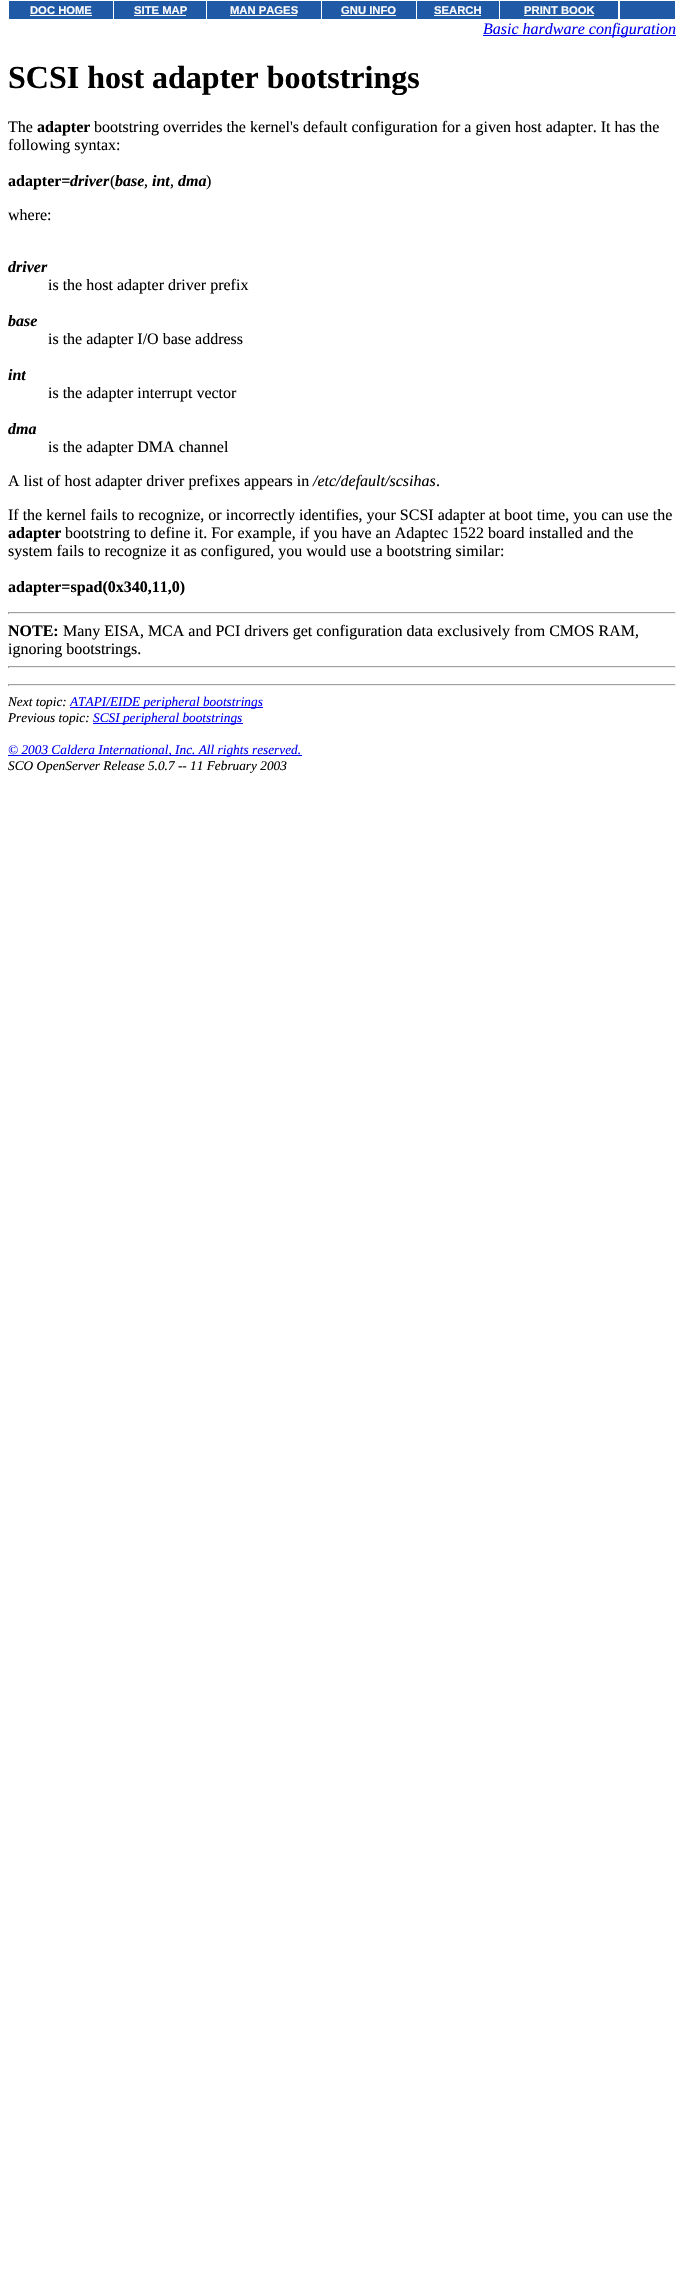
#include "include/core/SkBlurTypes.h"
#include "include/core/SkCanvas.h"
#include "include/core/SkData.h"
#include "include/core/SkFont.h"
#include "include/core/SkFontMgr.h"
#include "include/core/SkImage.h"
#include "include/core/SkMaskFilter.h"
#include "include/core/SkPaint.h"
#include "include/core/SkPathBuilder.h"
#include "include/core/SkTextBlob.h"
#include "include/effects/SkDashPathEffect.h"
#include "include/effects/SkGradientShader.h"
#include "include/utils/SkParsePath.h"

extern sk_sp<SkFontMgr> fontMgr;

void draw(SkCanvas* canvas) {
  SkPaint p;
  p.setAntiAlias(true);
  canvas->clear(SK_ColorWHITE);
  p.setColor(SkColorSetRGB(32, 89, 166));
  canvas->drawRect(SkRect::MakeLTRB(9, 1, 113, 19), p);
  p.setColor(SK_ColorWHITE);
  canvas->drawRect(SkRect::MakeLTRB(30, 15, 92, 16), p);
  p.setColor(SkColorSetRGB(32, 89, 166));
  canvas->drawRect(SkRect::MakeLTRB(114, 1, 206, 19), p);
  p.setColor(SK_ColorWHITE);
  canvas->drawRect(SkRect::MakeLTRB(134, 15, 186, 16), p);
  p.setColor(SkColorSetRGB(32, 89, 166));
  canvas->drawRect(SkRect::MakeLTRB(207, 1, 321, 19), p);
  p.setColor(SK_ColorWHITE);
  canvas->drawRect(SkRect::MakeLTRB(230, 15, 297, 16), p);
  p.setColor(SkColorSetRGB(32, 89, 166));
  canvas->drawRect(SkRect::MakeLTRB(322, 1, 416, 19), p);
  p.setColor(SK_ColorWHITE);
  canvas->drawRect(SkRect::MakeLTRB(341, 15, 396, 16), p);
  p.setColor(SkColorSetRGB(32, 89, 166));
  canvas->drawRect(SkRect::MakeLTRB(417, 1, 499, 19), p);
  p.setColor(SK_ColorWHITE);
  canvas->drawRect(SkRect::MakeLTRB(434, 15, 481, 16), p);
  p.setColor(SkColorSetRGB(32, 89, 166));
  canvas->drawRect(SkRect::MakeLTRB(500, 1, 618, 19), p);
  p.setColor(SK_ColorWHITE);
  canvas->drawRect(SkRect::MakeLTRB(524, 15, 594, 16), p);
  p.setColor(SkColorSetRGB(32, 89, 166));
  canvas->drawRect(SkRect::MakeLTRB(620, 1, 675, 19), p);
  p.setColor(SkColorSetRGB(0, 0, 238));
  canvas->drawRect(SkRect::MakeLTRB(483, 35, 676, 36), p);
  p.setColor(SkColorSetRGB(159, 159, 159));
  canvas->drawRect(SkRect::MakeLTRB(8, 612, 676, 613), p);
  p.setColor(SkColorSetRGB(238, 238, 238));
  canvas->drawRect(SkRect::MakeLTRB(675, 612, 676, 614), p);
  canvas->drawRect(SkRect::MakeLTRB(8, 613, 676, 614), p);
  p.setColor(SkColorSetRGB(159, 159, 159));
  canvas->drawRect(SkRect::MakeLTRB(8, 612, 9, 614), p);
  canvas->drawRect(SkRect::MakeLTRB(8, 666, 676, 667), p);
  p.setColor(SkColorSetRGB(238, 238, 238));
  canvas->drawRect(SkRect::MakeLTRB(675, 666, 676, 668), p);
  canvas->drawRect(SkRect::MakeLTRB(8, 667, 676, 668), p);
  p.setColor(SkColorSetRGB(159, 159, 159));
  canvas->drawRect(SkRect::MakeLTRB(8, 666, 9, 668), p);
  canvas->drawRect(SkRect::MakeLTRB(8, 684, 676, 685), p);
  p.setColor(SkColorSetRGB(238, 238, 238));
  canvas->drawRect(SkRect::MakeLTRB(675, 684, 676, 686), p);
  canvas->drawRect(SkRect::MakeLTRB(8, 685, 676, 686), p);
  p.setColor(SkColorSetRGB(159, 159, 159));
  canvas->drawRect(SkRect::MakeLTRB(8, 684, 9, 686), p);
  p.setColor(SkColorSetRGB(0, 0, 238));
  canvas->drawRect(SkRect::MakeLTRB(70, 707, 263, 708), p);
  canvas->drawRect(SkRect::MakeLTRB(93, 723, 243, 724), p);
  canvas->drawRect(SkRect::MakeLTRB(8, 755, 302, 756), p);
  SkFont font1(fontMgr->matchFamilyStyle("Liberation Sans", SkFontStyle::Bold()), 11.25f);
  font1.setSubpixel(true);
  p.setColor(SK_ColorWHITE);
  canvas->drawString("DOC HOME", 30, 14, font1, p);
  canvas->drawString("SITE MAP", 134, 14, font1, p);
  canvas->drawString("MAN PAGES", 230, 14, font1, p);
  canvas->drawString("GNU INFO", 341, 14, font1, p);
  canvas->drawString("SEARCH", 434, 14, font1, p);
  canvas->drawString("PRINT BOOK", 524, 14, font1, p);
  SkFont font2(fontMgr->matchFamilyStyle("Liberation Serif", SkFontStyle::Italic()), 16);
  font2.setSubpixel(true);
  p.setColor(SkColorSetRGB(0, 0, 238));
  canvas->drawString("Basic hardware configuration", 483, 34, font2, p);
  SkFont font3(fontMgr->matchFamilyStyle("Liberation Serif", SkFontStyle::Bold()), 32);
  font3.setSubpixel(true);
  p.setColor(SK_ColorBLACK);
  canvas->drawString("SCSI host adapter bootstrings", 8, 88, font3, p);
  SkFont font4(fontMgr->matchFamilyStyle("Liberation Serif", SkFontStyle::Normal()), 16);
  font4.setSubpixel(true);
  canvas->drawString("The", 8, 132, font4, p);
  SkFont font5(fontMgr->matchFamilyStyle("Liberation Serif", SkFontStyle::Bold()), 16);
  font5.setSubpixel(true);
  canvas->drawString("adapter", 37, 132, font5, p);
  canvas->drawString("bootstring overrides the kernel's default configuration for a given host adapter. It has the", 94, 132, font4, p);
  canvas->drawString("following syntax:", 8, 150, font4, p);
  canvas->drawString("adapter=", 8, 186, font5, p);
  SkFont font6(fontMgr->matchFamilyStyle("Liberation Serif", SkFontStyle::BoldItalic()), 16);
  font6.setSubpixel(true);
  canvas->drawString("driver", 70, 186, font6, p);
  canvas->drawString("(", 110, 186, font4, p);
  canvas->drawString("base", 115, 186, font6, p);
  canvas->drawString(",", 144, 186, font4, p);
  canvas->drawString("int", 152, 186, font6, p);
  canvas->drawString(",", 170, 186, font4, p);
  canvas->drawString("dma", 178, 186, font6, p);
  canvas->drawString(")", 206, 186, font4, p);
  canvas->drawString("where:", 8, 220, font4, p);
  canvas->drawString("driver", 8, 272, font6, p);
  canvas->drawString("is the host adapter driver prefix", 48, 290, font4, p);
  canvas->drawString("base", 8, 326, font6, p);
  canvas->drawString("is the adapter I/O base address", 48, 344, font4, p);
  canvas->drawString("int", 8, 380, font6, p);
  canvas->drawString("is the adapter interrupt vector", 48, 398, font4, p);
  canvas->drawString("dma", 8, 434, font6, p);
  canvas->drawString("is the adapter DMA channel", 48, 452, font4, p);
  canvas->drawString("A list of host adapter driver prefixes appears in", 8, 486, font4, p);
  canvas->drawString("/etc/default/scsihas", 313, 486, font2, p);
  canvas->drawString(".", 436, 486, font4, p);
  canvas->drawString("If the kernel fails to recognize, or incorrectly identifies, your SCSI adapter at boot time, you can use the", 8, 520, font4, p);
  canvas->drawString("adapter", 8, 538, font5, p);
  canvas->drawString("bootstring to define it. For example, if you have an Adaptec 1522 board installed and the", 65, 538, font4, p);
  canvas->drawString("system fails to recognize it as configured, you would use a bootstring similar:", 8, 556, font4, p);
  canvas->drawString("adapter=spad(0x340,11,0)", 8, 592, font5, p);
  canvas->drawString("NOTE:", 8, 636, font5, p);
  canvas->drawString("Many EISA, MCA and PCI drivers get configuration data exclusively from CMOS RAM,", 63, 636, font4, p);
  canvas->drawString("ignoring bootstrings.", 8, 654, font4, p);
  SkFont font7(fontMgr->matchFamilyStyle("Liberation Serif", SkFontStyle::Italic()), 13.3f);
  font7.setSubpixel(true);
  canvas->drawString("Next topic:", 8, 706, font7, p);
  p.setColor(SkColorSetRGB(0, 0, 238));
  canvas->drawString("ATAPI/EIDE peripheral bootstrings", 70, 706, font7, p);
  p.setColor(SK_ColorBLACK);
  canvas->drawString("Previous topic:", 8, 722, font7, p);
  p.setColor(SkColorSetRGB(0, 0, 238));
  canvas->drawString("SCSI peripheral bootstrings", 93, 722, font7, p);
  canvas->drawString("© 2003 Caldera International, Inc. All rights reserved.", 8, 754, font7, p);
  p.setColor(SK_ColorBLACK);
  canvas->drawString("SCO OpenServer Release 5.0.7 -- 11 February 2003", 8, 770, font7, p);
}
